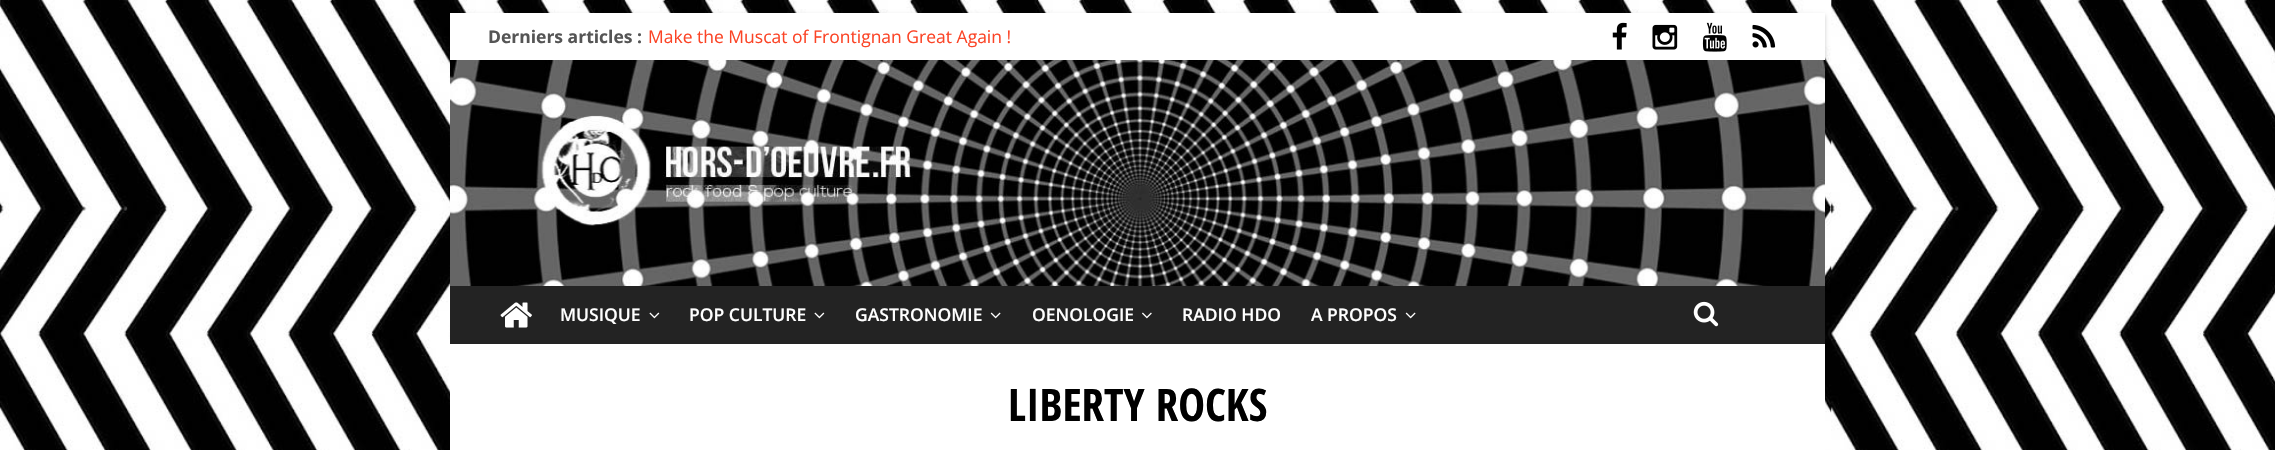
#include "include/core/SkBlurTypes.h"
#include "include/core/SkCanvas.h"
#include "include/core/SkData.h"
#include "include/core/SkFont.h"
#include "include/core/SkFontMgr.h"
#include "include/core/SkImage.h"
#include "include/core/SkMaskFilter.h"
#include "include/core/SkPaint.h"
#include "include/core/SkPathBuilder.h"
#include "include/core/SkTextBlob.h"
#include "include/effects/SkDashPathEffect.h"
#include "include/effects/SkGradientShader.h"
#include "include/utils/SkParsePath.h"

extern sk_sp<SkFontMgr> fontMgr;

void draw(SkCanvas* canvas) {
  SkPaint p;
  p.setAntiAlias(true);
  canvas->clear(SK_ColorWHITE);
  canvas->drawImageRect(SkImages::DeferredFromEncodedData(SkData::MakeFromFileName("images/1.png")), SkRect::MakeLTRB(0, 0, 2275, 450), SkSamplingOptions());
  p.setColor(SK_ColorWHITE);
  canvas->drawRect(SkRect::MakeLTRB(450, 13, 1825, 60), p);
  canvas->save();
  canvas->clipPath(SkPathBuilder(SkPathFillType::kEvenOdd).moveTo(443, 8).lineTo(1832, 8).lineTo(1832, 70).lineTo(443, 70).close().moveTo(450, 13).lineTo(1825, 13).lineTo(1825, 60).lineTo(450, 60).close().detach(), true);
  p.setColor(SkColorSetARGB(51, 0, 0, 0));
  p.setMaskFilter(SkMaskFilter::MakeBlur(kNormal_SkBlurStyle, 2));
  canvas->drawRect(SkRect::MakeLTRB(450, 15, 1825, 63), p);
  p.setMaskFilter(nullptr);
  canvas->restore();
  canvas->drawImageRect(SkImages::DeferredFromEncodedData(SkData::MakeFromFileName("images/2.png")), SkRect::MakeLTRB(1612, 22, 1627, 50), SkSamplingOptions());
  canvas->drawImageRect(SkImages::DeferredFromEncodedData(SkData::MakeFromFileName("images/3.png")), SkRect::MakeLTRB(1652, 24, 1678, 50), SkSamplingOptions());
  canvas->drawImageRect(SkImages::DeferredFromEncodedData(SkData::MakeFromFileName("images/4.png")), SkRect::MakeLTRB(1702, 22, 1727, 52), SkSamplingOptions());
  canvas->drawImageRect(SkImages::DeferredFromEncodedData(SkData::MakeFromFileName("images/5.png")), SkRect::MakeLTRB(1752, 24, 1776, 48), SkSamplingOptions());
  canvas->drawImageRect(SkImages::DeferredFromEncodedData(SkData::MakeFromFileName("images/6.png")), SkRect::MakeLTRB(450, 60, 1825, 286), SkSamplingOptions());
  p.setColor(SkColorSetRGB(35, 35, 35));
  canvas->drawRect(SkRect::MakeLTRB(450, 286, 1825, 344), p);
  canvas->drawImageRect(SkImages::DeferredFromEncodedData(SkData::MakeFromFileName("images/7.png")), SkRect::MakeLTRB(500, 302, 532, 328), SkSamplingOptions());
  canvas->drawImageRect(SkImages::DeferredFromEncodedData(SkData::MakeFromFileName("images/8.png")), SkRect::MakeLTRB(649, 312, 660, 319), SkSamplingOptions());
  canvas->drawImageRect(SkImages::DeferredFromEncodedData(SkData::MakeFromFileName("images/8.png")), SkRect::MakeLTRB(814, 312, 825, 319), SkSamplingOptions());
  canvas->drawImageRect(SkImages::DeferredFromEncodedData(SkData::MakeFromFileName("images/9.png")), SkRect::MakeLTRB(990, 312, 1001, 319), SkSamplingOptions());
  canvas->drawImageRect(SkImages::DeferredFromEncodedData(SkData::MakeFromFileName("images/10.png")), SkRect::MakeLTRB(1142, 312, 1152, 319), SkSamplingOptions());
  canvas->drawImageRect(SkImages::DeferredFromEncodedData(SkData::MakeFromFileName("images/9.png")), SkRect::MakeLTRB(1405, 312, 1416, 319), SkSamplingOptions());
  canvas->drawImageRect(SkImages::DeferredFromEncodedData(SkData::MakeFromFileName("images/11.png")), SkRect::MakeLTRB(1693, 301, 1719, 327), SkSamplingOptions());
  p.setColor(SK_ColorWHITE);
  canvas->drawRect(SkRect::MakeLTRB(450, 344, 1825, 450), p);
  SkFont font1(fontMgr->matchFamilyStyle("Open Sans", SkFontStyle::Bold()), 17.5f);
  font1.setSubpixel(true);
  p.setColor(SkColorSetRGB(85, 85, 85));
  canvas->drawString("Derniers articles :", 488, 43, font1, p);
  SkFont font2(fontMgr->matchFamilyStyle("Open Sans", SkFontStyle::Normal()), 17.5f);
  font2.setSubpixel(true);
  p.setColor(SkColorSetRGB(251, 68, 38));
  canvas->drawString("Make the Muscat of Frontignan Great Again !", 648, 43, font2, p);
  SkFont font3(fontMgr->matchFamilyStyle("Open Sans", SkFontStyle(600, SkFontStyle::kNormal_Width, SkFontStyle::kUpright_Slant)), 17.5f);
  font3.setSubpixel(true);
  p.setColor(SK_ColorWHITE);
  canvas->drawString("MUSIQUE", 560, 321, font3, p);
  canvas->drawString("POP CULTURE", 689, 321, font3, p);
  canvas->drawString("GASTRONOMIE", 855, 321, font3, p);
  canvas->drawString("OENOLOGIE", 1032, 321, font3, p);
  canvas->drawString("RADIO HDO", 1182, 321, font3, p);
  canvas->drawString("A PROPOS", 1311, 321, font3, p);
  SkFont font4(fontMgr->matchFamilyStyle("Open Sans Condensed", SkFontStyle::Bold()), 45);
  font4.setSubpixel(true);
  p.setColor(SK_ColorBLACK);
  canvas->drawString("LIBERTY ROCKS", 1008, 421, font4, p);
}
